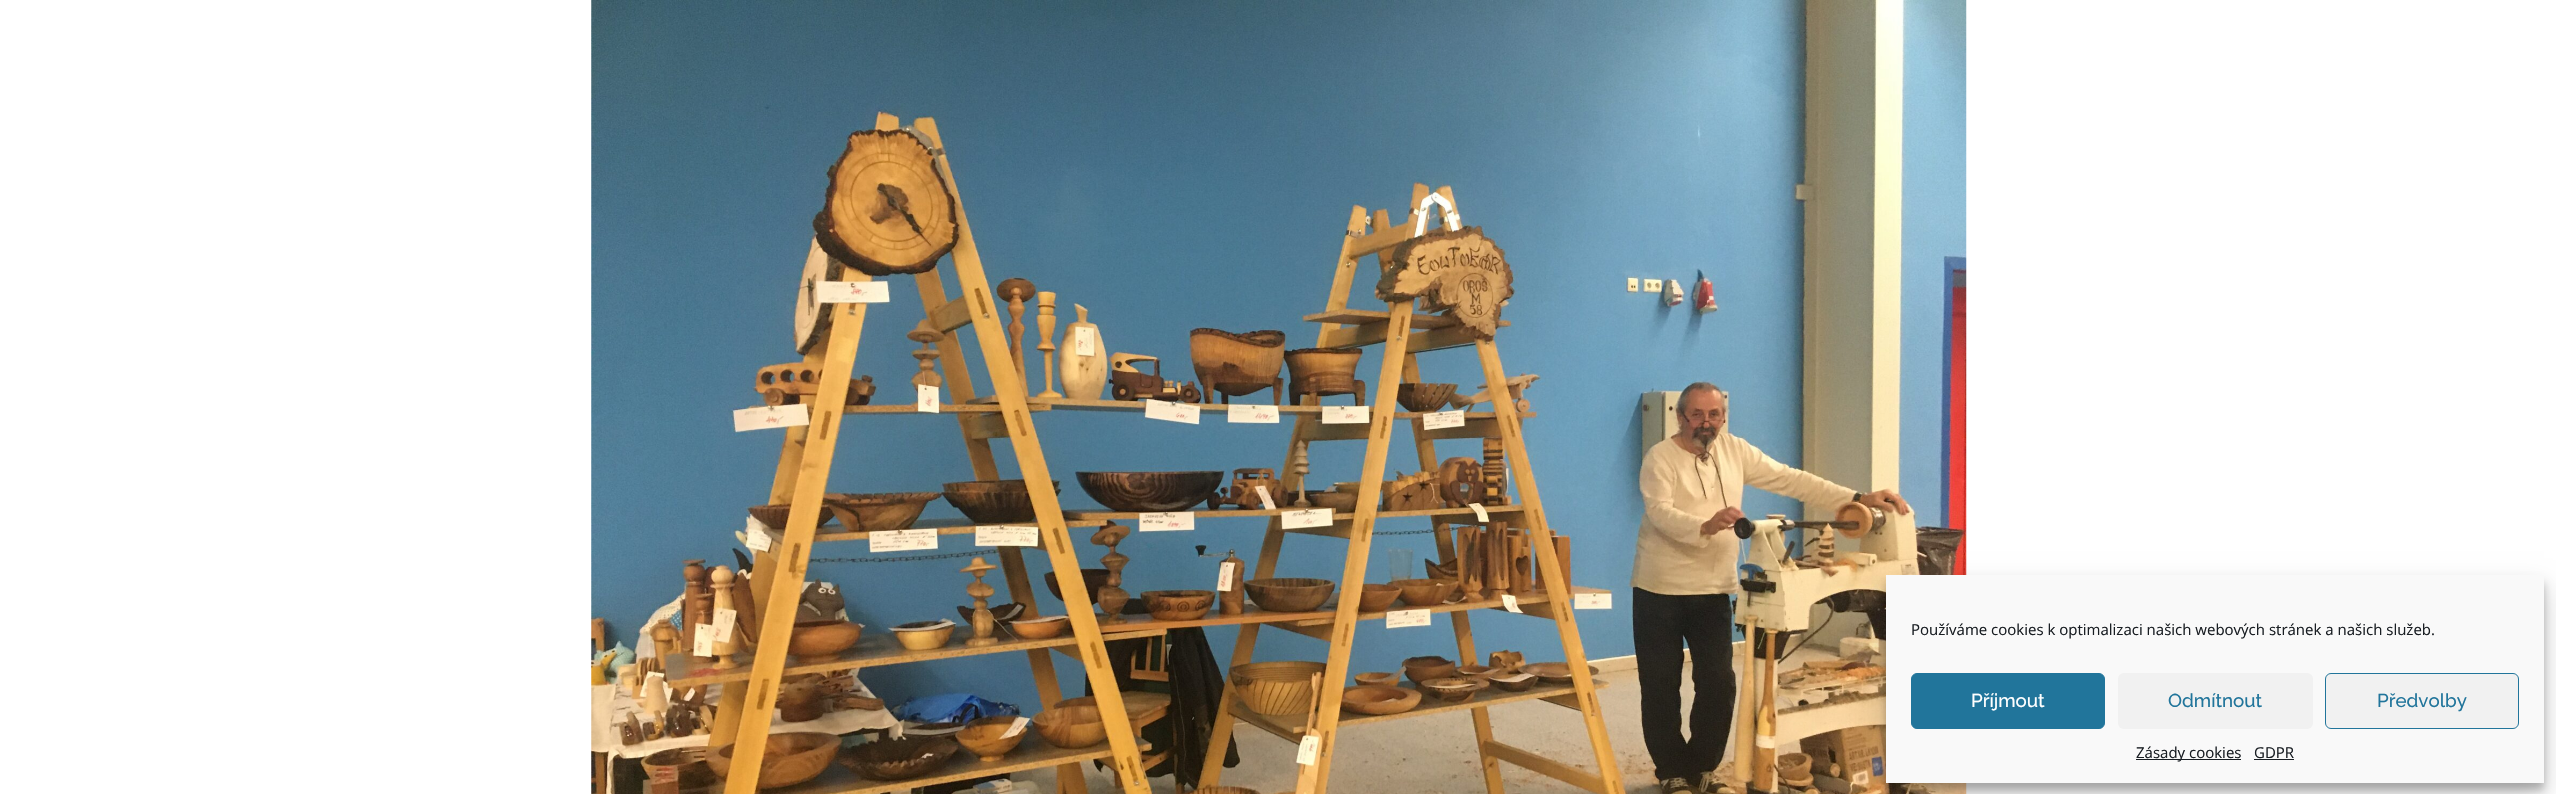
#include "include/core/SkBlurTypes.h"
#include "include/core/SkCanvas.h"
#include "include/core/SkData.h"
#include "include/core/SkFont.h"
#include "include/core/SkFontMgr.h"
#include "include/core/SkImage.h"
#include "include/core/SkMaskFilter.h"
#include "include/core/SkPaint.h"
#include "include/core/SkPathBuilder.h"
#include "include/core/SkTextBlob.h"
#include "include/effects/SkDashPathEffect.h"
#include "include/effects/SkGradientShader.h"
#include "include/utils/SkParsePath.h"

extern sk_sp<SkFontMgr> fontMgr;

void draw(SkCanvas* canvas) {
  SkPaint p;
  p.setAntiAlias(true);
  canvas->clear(SK_ColorWHITE);
  canvas->drawImageRect(SkImages::DeferredFromEncodedData(SkData::MakeFromFileName("images/1.png")), SkRect::MakeLTRB(591, 0, 1967, 794), SkSamplingOptions());
  p.setColor(SkColorSetARGB(59, 0, 0, 0));
  p.setMaskFilter(SkMaskFilter::MakeBlur(kNormal_SkBlurStyle, 4));
  canvas->drawRect(SkRect::MakeLTRB(1886, 583, 2544, 790), p);
  p.setMaskFilter(nullptr);
  p.setColor(SkColorSetARGB(48, 0, 0, 0));
  p.setMaskFilter(SkMaskFilter::MakeBlur(kNormal_SkBlurStyle, 12.5f));
  canvas->drawRect(SkRect::MakeLTRB(1886, 588, 2544, 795), p);
  p.setMaskFilter(nullptr);
  p.setColor(SkColorSetRGB(249, 249, 249));
  canvas->drawRect(SkRect::MakeLTRB(1886, 575, 2544, 783), p);
  p.setColor(SkColorSetRGB(33, 117, 155));
  canvas->drawRoundRect(SkRect::MakeLTRB(1911.5f, 673.5f, 2104.5f, 728.5f), 5.5f, 5.5f, p);
  p.setStyle(SkPaint::kStroke_Style);
  p.setStrokeWidth(1);
  canvas->drawRoundRect(SkRect::MakeLTRB(1911.5f, 673.5f, 2104.5f, 728.5f), 5.5f, 5.5f, p);
  p.setStyle(SkPaint::kFill_Style);
  p.setColor(SkColorSetRGB(241, 241, 241));
  canvas->drawRoundRect(SkRect::MakeLTRB(2118, 673, 2313, 729), 6, 6, p);
  canvas->drawRoundRect(SkRect::MakeLTRB(2325.5f, 673.5f, 2518.5f, 728.5f), 5.5f, 5.5f, p);
  p.setStyle(SkPaint::kStroke_Style);
  p.setColor(SkColorSetRGB(33, 117, 155));
  canvas->drawRoundRect(SkRect::MakeLTRB(2325.5f, 673.5f, 2518.5f, 728.5f), 5.5f, 5.5f, p);
  p.setStyle(SkPaint::kFill_Style);
  p.setColor(SkColorSetRGB(25, 30, 35));
  canvas->drawRect(SkRect::MakeLTRB(2136, 759, 2241, 760), p);
  canvas->drawRect(SkRect::MakeLTRB(2254, 759, 2294, 760), p);
  SkFont font1(fontMgr->matchFamilyStyle("Open Sans", SkFontStyle::Normal()), 15);
  font1.setSubpixel(true);
  canvas->drawString("Používáme cookies k optimalizaci našich webových stránek a našich služeb.", 1911, 635, font1, p);
  SkFont font2(fontMgr->matchFamilyStyle("Raleway", SkFontStyle(500, SkFontStyle::kNormal_Width, SkFontStyle::kUpright_Slant)), 18.75f);
  font2.setSubpixel(true);
  p.setColor(SK_ColorWHITE);
  canvas->drawString("Příjmout", 1971, 707, font2, p);
  p.setColor(SkColorSetRGB(33, 117, 155));
  canvas->drawString("Odmítnout", 2168, 707, font2, p);
  canvas->drawString("Předvolby", 2377, 707, font2, p);
  p.setColor(SkColorSetRGB(25, 30, 35));
  canvas->drawString("Zásady cookies", 2136, 758, font1, p);
  canvas->drawString("GDPR", 2254, 758, font1, p);
}
